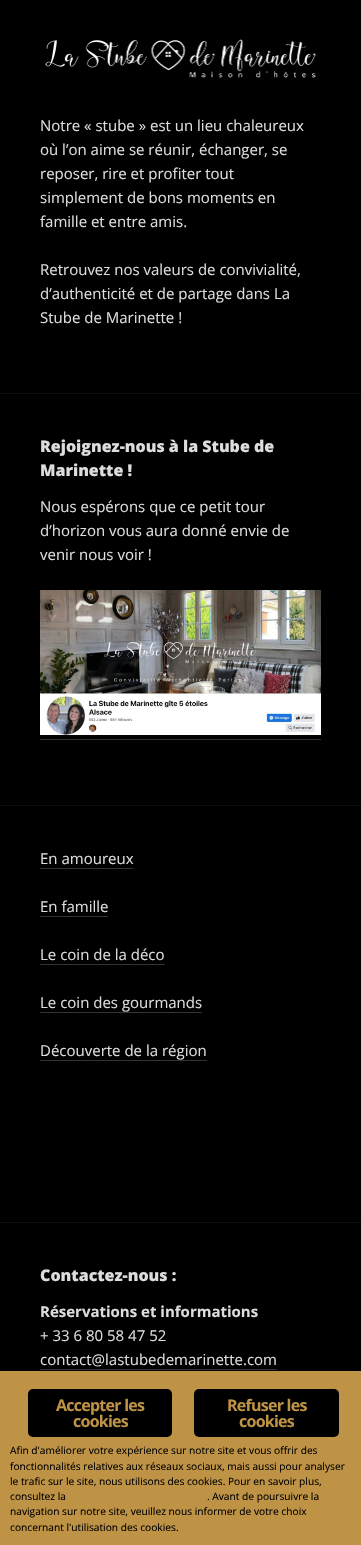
#include "include/core/SkBlurTypes.h"
#include "include/core/SkCanvas.h"
#include "include/core/SkData.h"
#include "include/core/SkFont.h"
#include "include/core/SkFontMgr.h"
#include "include/core/SkImage.h"
#include "include/core/SkMaskFilter.h"
#include "include/core/SkPaint.h"
#include "include/core/SkPathBuilder.h"
#include "include/core/SkTextBlob.h"
#include "include/effects/SkDashPathEffect.h"
#include "include/effects/SkGradientShader.h"
#include "include/utils/SkParsePath.h"

extern sk_sp<SkFontMgr> fontMgr;

void draw(SkCanvas* canvas) {
  SkPaint p;
  p.setAntiAlias(true);
  auto spacedText = [&](const char* s, float x, float y, const SkFont& font, const SkPaint& ink, float letter, float word) {
    std::vector<SkGlyphID> glyphs(font.countText(s, strlen(s), SkTextEncoding::kUTF8));
    std::vector<float> xs(glyphs.size());
    font.textToGlyphs(s, strlen(s), SkTextEncoding::kUTF8, glyphs);
    font.getXPos(glyphs, xs, x);
    float extra = 0;
    for (size_t i = 0; i < glyphs.size(); i++) {
      xs[i] += extra;
      extra += letter + word * (glyphs[i] == font.unicharToGlyph(' '));
    }
    canvas->drawTextBlob(SkTextBlob::MakeFromPosHGlyphs(glyphs, xs, y, font), 0, 0, ink);
  };
  canvas->clear(SK_ColorBLACK);
  canvas->drawImageRect(SkImages::DeferredFromEncodedData(SkData::MakeFromFileName("images/1.png")), SkRect::MakeLTRB(45, 39, 316, 78), SkSamplingOptions());
  p.setColor(SkColorSetRGB(13, 13, 13));
  canvas->drawRect(SkRect::MakeLTRB(0, 393, 361, 394), p);
  canvas->drawImageRect(SkImages::DeferredFromEncodedData(SkData::MakeFromFileName("images/2.png")), SkRect::MakeLTRB(40, 590, 321, 735), SkSamplingOptions());
  p.setColor(SkColorSetRGB(51, 51, 51));
  canvas->drawRect(SkRect::MakeLTRB(40, 739, 321, 740), p);
  p.setColor(SkColorSetRGB(13, 13, 13));
  canvas->drawRect(SkRect::MakeLTRB(0, 805, 361, 806), p);
  p.setColor(SkColorSetRGB(51, 51, 51));
  canvas->drawRect(SkRect::MakeLTRB(40, 868, 133, 869), p);
  canvas->drawRect(SkRect::MakeLTRB(40, 916, 108, 917), p);
  canvas->drawRect(SkRect::MakeLTRB(40, 964, 165, 965), p);
  canvas->drawRect(SkRect::MakeLTRB(40, 1012, 202, 1013), p);
  canvas->drawRect(SkRect::MakeLTRB(40, 1060, 207, 1061), p);
  p.setColor(SkColorSetRGB(13, 13, 13));
  canvas->drawRect(SkRect::MakeLTRB(0, 1222, 361, 1223), p);
  p.setColor(SkColorSetRGB(51, 51, 51));
  canvas->drawRect(SkRect::MakeLTRB(40, 1369, 277, 1370), p);
  p.setColor(SkColorSetRGB(191, 147, 70));
  canvas->drawRect(SkRect::MakeLTRB(0, 1371, 361, 1545), p);
  p.setColor(SK_ColorBLACK);
  canvas->drawRoundRect(SkRect::MakeLTRB(28, 1389, 172, 1437), 5, 5, p);
  canvas->drawRoundRect(SkRect::MakeLTRB(194, 1389, 339, 1437), 5, 5, p);
  SkFont font1(fontMgr->matchFamilyStyle("Open Sans", SkFontStyle::Normal()), 15);
  font1.setSubpixel(true);
  p.setColor(SkColorSetRGB(221, 221, 221));
  canvas->drawString("Notre « stube » est un lieu chaleureux", 40, 131, font1, p);
  canvas->drawString("où l’on aime se réunir, échanger, se", 40, 155, font1, p);
  canvas->drawString("reposer, rire et profiter tout", 40, 179, font1, p);
  canvas->drawString("simplement de bons moments en", 40, 203, font1, p);
  canvas->drawString("famille et entre amis.", 40, 227, font1, p);
  canvas->drawString("Retrouvez nos valeurs de convivialité,", 40, 275, font1, p);
  canvas->drawString("d’authenticité et de partage dans La", 40, 299, font1, p);
  canvas->drawString("Stube de Marinette !", 40, 323, font1, p);
  SkFont font2(fontMgr->matchFamilyStyle("Open Sans", SkFontStyle(800, SkFontStyle::kNormal_Width, SkFontStyle::kUpright_Slant)), 16);
  font2.setSubpixel(true);
  canvas->drawString("Rejoignez-nous à la Stube de", 40, 452, font2, p);
  canvas->drawString("Marinette !", 40, 476, font2, p);
  canvas->drawString("Nous espérons que ce petit tour", 40, 512, font1, p);
  canvas->drawString("d’horizon vous aura donné envie de", 40, 536, font1, p);
  canvas->drawString("venir nous voir !", 40, 560, font1, p);
  canvas->drawString("En amoureux", 40, 864, font1, p);
  canvas->drawString("En famille", 40, 912, font1, p);
  canvas->drawString("Le coin de la déco", 40, 960, font1, p);
  canvas->drawString("Le coin des gourmands", 40, 1008, font1, p);
  canvas->drawString("Découverte de la région", 40, 1056, font1, p);
  canvas->drawString("Contactez-nous :", 40, 1281, font2, p);
  SkFont font3(fontMgr->matchFamilyStyle("Open Sans", SkFontStyle::Bold()), 15);
  font3.setSubpixel(true);
  canvas->drawString("Réservations et informations", 40, 1317, font3, p);
  canvas->drawString("+ 33 6 80 58 47 52", 40, 1341, font1, p);
  canvas->drawString("contact@lastubedemarinette.com", 40, 1365, font1, p);
  SkFont font4(fontMgr->matchFamilyStyle("Open Sans", SkFontStyle::Bold()), 16);
  font4.setSubpixel(true);
  p.setColor(SkColorSetRGB(191, 147, 70));
  spacedText("Accepter les", 56, 1411, font4, p, -0.75f, 0);
  spacedText("cookies", 73, 1427, font4, p, -0.75f, 0);
  spacedText("Refuser les", 227, 1411, font4, p, -0.75f, 0);
  spacedText("cookies", 239, 1427, font4, p, -0.75f, 0);
  SkFont font5(fontMgr->matchFamilyStyle("Open Sans", SkFontStyle::Normal()), 10.2f);
  font5.setSubpixel(true);
  p.setColor(SK_ColorBLACK);
  canvas->drawString("Afin d'améliorer votre expérience sur notre site et vous offrir des", 10, 1454, font5, p);
  canvas->drawString("fonctionnalités relatives aux réseaux sociaux, mais aussi pour analyser", 10, 1470, font5, p);
  canvas->drawString("le trafic sur le site, nous utilisons des cookies. Pour en savoir plus,", 10, 1485, font5, p);
  canvas->drawString("consultez la", 10, 1500, font5, p);
  canvas->drawString(". Avant de poursuivre la", 207, 1500, font5, p);
  canvas->drawString("navigation sur notre site, veuillez nous informer de votre choix", 10, 1515, font5, p);
  canvas->drawString("concernant l'utilisation des cookies.", 10, 1531, font5, p);
}
